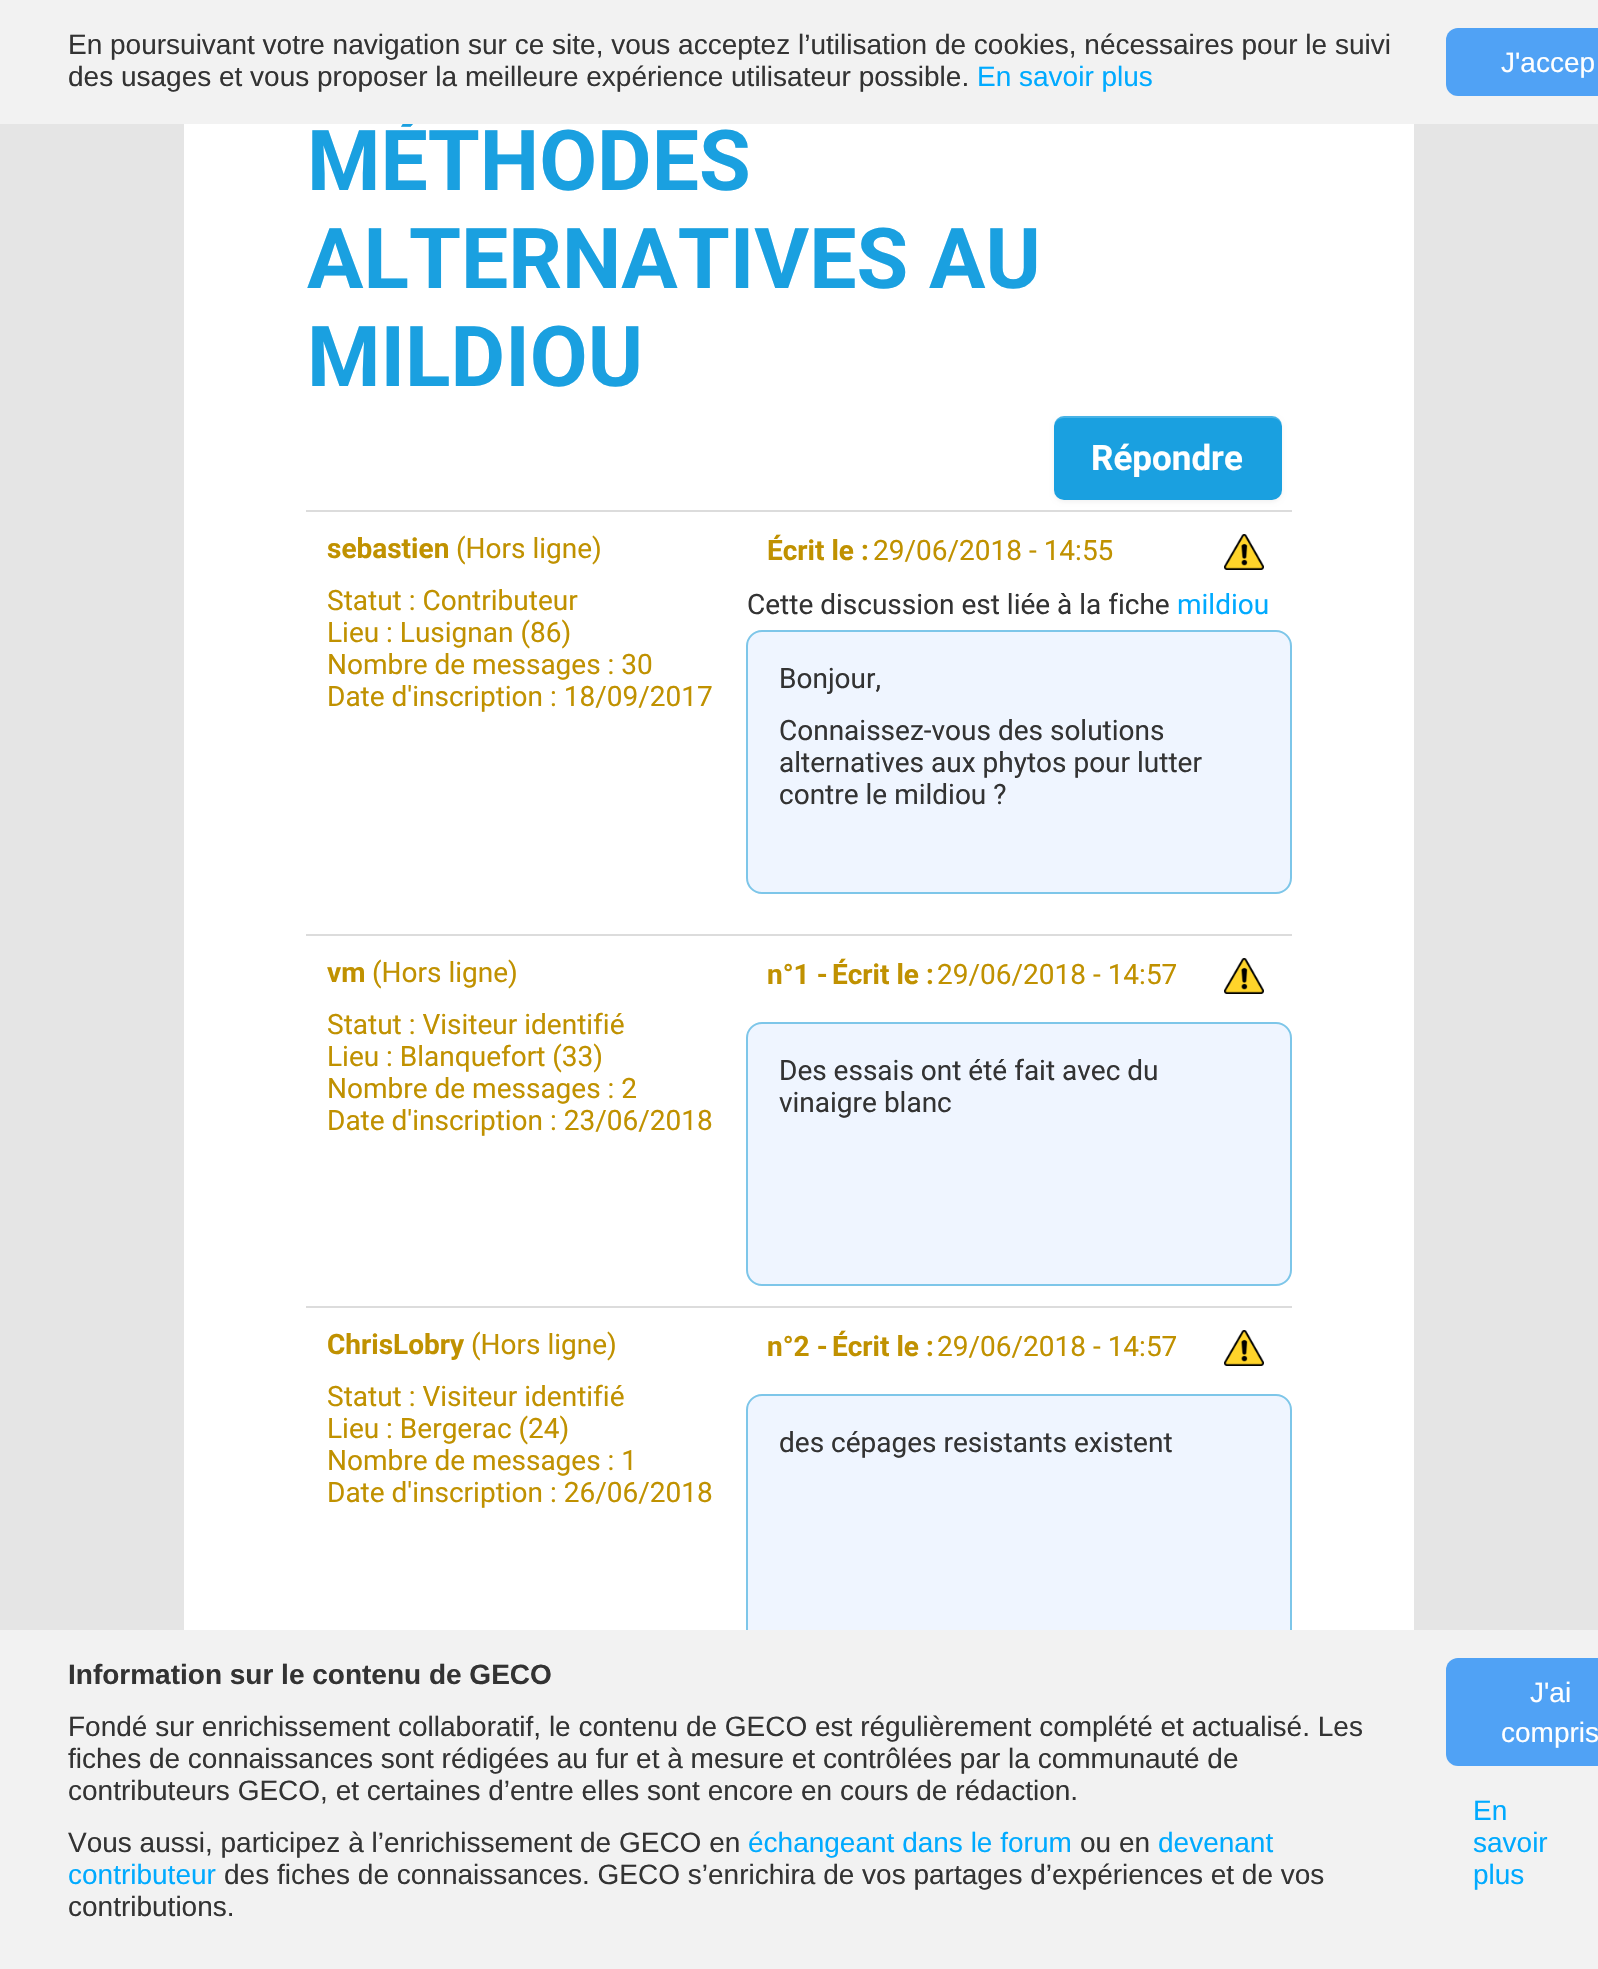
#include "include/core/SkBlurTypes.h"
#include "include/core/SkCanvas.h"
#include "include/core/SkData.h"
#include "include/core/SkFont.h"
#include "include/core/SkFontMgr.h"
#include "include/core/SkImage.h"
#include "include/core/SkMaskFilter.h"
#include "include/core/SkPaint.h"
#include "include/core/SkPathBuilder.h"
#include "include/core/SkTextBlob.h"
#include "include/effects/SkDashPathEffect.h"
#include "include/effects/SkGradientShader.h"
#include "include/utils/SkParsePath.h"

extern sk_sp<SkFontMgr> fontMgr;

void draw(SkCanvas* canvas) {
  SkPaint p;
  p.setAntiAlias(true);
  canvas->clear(SkColorSetRGB(229, 229, 229));
  p.setColor(SK_ColorWHITE);
  canvas->drawRect(SkRect::MakeLTRB(184, 124, 1414, 1630), p);
  p.setColor(SkColorSetRGB(239, 245, 255));
  canvas->drawRoundRect(SkRect::MakeLTRB(747, 1395, 1291, 1657), 15, 15, p);
  p.setStyle(SkPaint::kStroke_Style);
  p.setStrokeWidth(2);
  p.setColor(SkColorSetRGB(125, 198, 233));
  canvas->drawRoundRect(SkRect::MakeLTRB(747, 1395, 1291, 1657), 15, 15, p);
  p.setStyle(SkPaint::kFill_Style);
  p.setColor(SkColorSetRGB(242, 242, 242));
  canvas->drawRect(SkRect::MakeLTRB(0, 1630, 1598, 1969), p);
  p.setColor(SkColorSetRGB(80, 162, 245));
  canvas->drawRoundRect(SkRect::MakeLTRB(1446, 1658, 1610, 1766), 12, 12, p);
  p.setColor(SkColorSetARGB(13, 0, 0, 0));
  p.setMaskFilter(SkMaskFilter::MakeBlur(kNormal_SkBlurStyle, 2));
  canvas->drawRoundRect(SkRect::MakeLTRB(1054, 418, 1282, 502), 10, 10, p);
  p.setMaskFilter(nullptr);
  p.setColor(SkColorSetRGB(26, 160, 224));
  canvas->drawRoundRect(SkRect::MakeLTRB(1054, 416, 1282, 500), 10, 10, p);
  p.setColor(SkColorSetARGB(51, 255, 255, 255));
  canvas->drawPath(SkPathBuilder().moveTo(1064, 418).lineTo(1272, 418).cubicTo(1278, 418, 1282, 422, 1282, 428).lineTo(1282, 426).cubicTo(1282, 420, 1278, 416, 1272, 416).lineTo(1064, 416).cubicTo(1058, 416, 1054, 420, 1054, 426).lineTo(1054, 428).cubicTo(1054, 422, 1058, 418, 1064, 418).close().detach(), p);
  p.setColor(SkColorSetRGB(220, 220, 220));
  canvas->drawRect(SkRect::MakeLTRB(306, 510, 1292, 512), p);
  canvas->drawImageRect(SkImages::DeferredFromEncodedData(SkData::MakeFromFileName("images/1.png")), SkRect::MakeLTRB(1224, 534, 1264, 570), SkSamplingOptions());
  p.setColor(SkColorSetRGB(239, 245, 255));
  canvas->drawRoundRect(SkRect::MakeLTRB(747, 631, 1291, 893), 15, 15, p);
  p.setStyle(SkPaint::kStroke_Style);
  p.setColor(SkColorSetRGB(125, 198, 233));
  canvas->drawRoundRect(SkRect::MakeLTRB(747, 631, 1291, 893), 15, 15, p);
  p.setStyle(SkPaint::kFill_Style);
  p.setColor(SkColorSetRGB(220, 220, 220));
  canvas->drawRect(SkRect::MakeLTRB(306, 934, 1292, 936), p);
  canvas->drawImageRect(SkImages::DeferredFromEncodedData(SkData::MakeFromFileName("images/1.png")), SkRect::MakeLTRB(1224, 958, 1264, 994), SkSamplingOptions());
  p.setColor(SkColorSetRGB(239, 245, 255));
  canvas->drawRoundRect(SkRect::MakeLTRB(747, 1023, 1291, 1285), 15, 15, p);
  p.setStyle(SkPaint::kStroke_Style);
  p.setColor(SkColorSetRGB(125, 198, 233));
  canvas->drawRoundRect(SkRect::MakeLTRB(747, 1023, 1291, 1285), 15, 15, p);
  p.setStyle(SkPaint::kFill_Style);
  p.setColor(SkColorSetRGB(220, 220, 220));
  canvas->drawRect(SkRect::MakeLTRB(306, 1306, 1292, 1308), p);
  canvas->drawImageRect(SkImages::DeferredFromEncodedData(SkData::MakeFromFileName("images/1.png")), SkRect::MakeLTRB(1224, 1330, 1264, 1366), SkSamplingOptions());
  SkFont font1(fontMgr->matchFamilyStyle("Liberation Sans", SkFontStyle::Bold()), 28);
  font1.setSubpixel(true);
  p.setColor(SkColorSetRGB(51, 51, 51));
  canvas->drawString("Information sur le contenu de GECO", 68, 1684, font1, p);
  SkFont font2(fontMgr->matchFamilyStyle("Liberation Sans", SkFontStyle::Normal()), 28);
  font2.setSubpixel(true);
  canvas->drawString("Fondé sur enrichissement collaboratif, le contenu de GECO est régulièrement complété et actualisé. Les", 68, 1736, font2, p);
  canvas->drawString("fiches de connaissances sont rédigées au fur et à mesure et contrôlées par la communauté de", 68, 1768, font2, p);
  canvas->drawString("contributeurs GECO, et certaines d’entre elles sont encore en cours de rédaction.", 68, 1800, font2, p);
  canvas->drawString("Vous aussi, participez à l’enrichissement de GECO en", 68, 1852, font2, p);
  p.setColor(SkColorSetRGB(0, 170, 255));
  canvas->drawString("échangeant dans le forum", 748, 1852, font2, p);
  p.setColor(SkColorSetRGB(51, 51, 51));
  canvas->drawString("ou en", 1080, 1852, font2, p);
  p.setColor(SkColorSetRGB(0, 170, 255));
  canvas->drawString("devenant", 1158, 1852, font2, p);
  canvas->drawString("contributeur", 68, 1884, font2, p);
  p.setColor(SkColorSetRGB(51, 51, 51));
  canvas->drawString("des fiches de connaissances. GECO s’enrichira de vos partages d’expériences et de vos", 224, 1884, font2, p);
  canvas->drawString("contributions.", 68, 1916, font2, p);
  p.setColor(SK_ColorWHITE);
  canvas->drawString("J'ai", 1530, 1702, font2, p);
  canvas->drawString("compris", 1501, 1742, font2, p);
  p.setColor(SkColorSetRGB(0, 170, 255));
  canvas->drawString("En", 1473, 1820, font2, p);
  canvas->drawString("savoir", 1473, 1852, font2, p);
  canvas->drawString("plus", 1473, 1884, font2, p);
  SkFont font3(fontMgr->matchFamilyStyle("Roboto", SkFontStyle::Bold()), 84);
  font3.setSubpixel(true);
  p.setColor(SkColorSetRGB(26, 160, 224));
  canvas->drawString("MÉTHODES", 307, 190, font3, p);
  p.setColor(SkColorSetRGB(242, 242, 242));
  canvas->drawRect(SkRect::MakeLTRB(0, 0, 1598, 124), p);
  p.setColor(SkColorSetRGB(80, 162, 245));
  canvas->drawRoundRect(SkRect::MakeLTRB(1446, 28, 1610, 96), 12, 12, p);
  p.setColor(SK_ColorWHITE);
  canvas->drawString("J'accep", 1501, 72, font2, p);
  p.setColor(SkColorSetRGB(0, 170, 255));
  canvas->drawString("En savoir plus", 977, 86, font2, p);
  p.setColor(SkColorSetRGB(51, 51, 51));
  canvas->drawString("des usages et vous proposer la meilleure expérience utilisateur possible.", 68, 86, font2, p);
  canvas->drawString("En poursuivant votre navigation sur ce site, vous acceptez l’utilisation de cookies, nécessaires pour le suivi", 68, 54, font2, p);
  p.setColor(SkColorSetRGB(26, 160, 224));
  canvas->drawString("ALTERNATIVES AU", 307, 288, font3, p);
  canvas->drawString("MILDIOU", 307, 386, font3, p);
  SkFont font4(fontMgr->matchFamilyStyle("Roboto", SkFontStyle::Bold()), 35);
  font4.setSubpixel(true);
  p.setColor(SK_ColorWHITE);
  canvas->drawString("Répondre", 1091, 470, font4, p);
  SkFont font5(fontMgr->matchFamilyStyle("Roboto", SkFontStyle::Bold()), 28);
  font5.setSubpixel(true);
  p.setColor(SkColorSetRGB(192, 145, 0));
  canvas->drawString("sebastien", 327, 558, font5, p);
  SkFont font6(fontMgr->matchFamilyStyle("Roboto", SkFontStyle::Normal()), 28);
  font6.setSubpixel(true);
  canvas->drawString("(Hors ligne)", 456, 558, font6, p);
  canvas->drawString("Statut : Contributeur", 327, 610, font6, p);
  canvas->drawString("Lieu : Lusignan (86)", 327, 642, font6, p);
  canvas->drawString("Nombre de messages : 30", 327, 674, font6, p);
  canvas->drawString("Date d'inscription : 18/09/2017", 327, 706, font6, p);
  canvas->drawString("Écrit le :", 767, 560, font5, p);
  canvas->drawString("29/06/2018 - 14:55", 873, 560, font6, p);
  p.setColor(SkColorSetRGB(51, 51, 51));
  canvas->drawString("Cette discussion est liée à la fiche", 747, 614, font6, p);
  p.setColor(SkColorSetRGB(0, 170, 255));
  canvas->drawString("mildiou", 1177, 614, font6, p);
  p.setColor(SkColorSetRGB(51, 51, 51));
  canvas->drawString("Bonjour,", 779, 688, font6, p);
  canvas->drawString("Connaissez-vous des solutions", 779, 740, font6, p);
  canvas->drawString("alternatives aux phytos pour lutter", 779, 772, font6, p);
  canvas->drawString("contre le mildiou ?", 779, 804, font6, p);
  p.setColor(SkColorSetRGB(192, 145, 0));
  canvas->drawString("vm", 327, 982, font5, p);
  canvas->drawString("(Hors ligne)", 372, 982, font6, p);
  canvas->drawString("Statut : Visiteur identifié", 327, 1034, font6, p);
  canvas->drawString("Lieu : Blanquefort (33)", 327, 1066, font6, p);
  canvas->drawString("Nombre de messages : 2", 327, 1098, font6, p);
  canvas->drawString("Date d'inscription : 23/06/2018", 327, 1130, font6, p);
  canvas->drawString("n°1 -", 767, 984, font5, p);
  canvas->drawString("Écrit le :", 832, 984, font5, p);
  canvas->drawString("29/06/2018 - 14:57", 937, 984, font6, p);
  p.setColor(SkColorSetRGB(51, 51, 51));
  canvas->drawString("Des essais ont été fait avec du", 779, 1080, font6, p);
  canvas->drawString("vinaigre blanc", 779, 1112, font6, p);
  p.setColor(SkColorSetRGB(192, 145, 0));
  canvas->drawString("ChrisLobry", 327, 1354, font5, p);
  canvas->drawString("(Hors ligne)", 471, 1354, font6, p);
  canvas->drawString("Statut : Visiteur identifié", 327, 1406, font6, p);
  canvas->drawString("Lieu : Bergerac (24)", 327, 1438, font6, p);
  canvas->drawString("Nombre de messages : 1", 327, 1470, font6, p);
  canvas->drawString("Date d'inscription : 26/06/2018", 327, 1502, font6, p);
  canvas->drawString("n°2 -", 767, 1356, font5, p);
  canvas->drawString("Écrit le :", 832, 1356, font5, p);
  canvas->drawString("29/06/2018 - 14:57", 937, 1356, font6, p);
  p.setColor(SkColorSetRGB(51, 51, 51));
  canvas->drawString("des cépages resistants existent", 779, 1452, font6, p);
}
